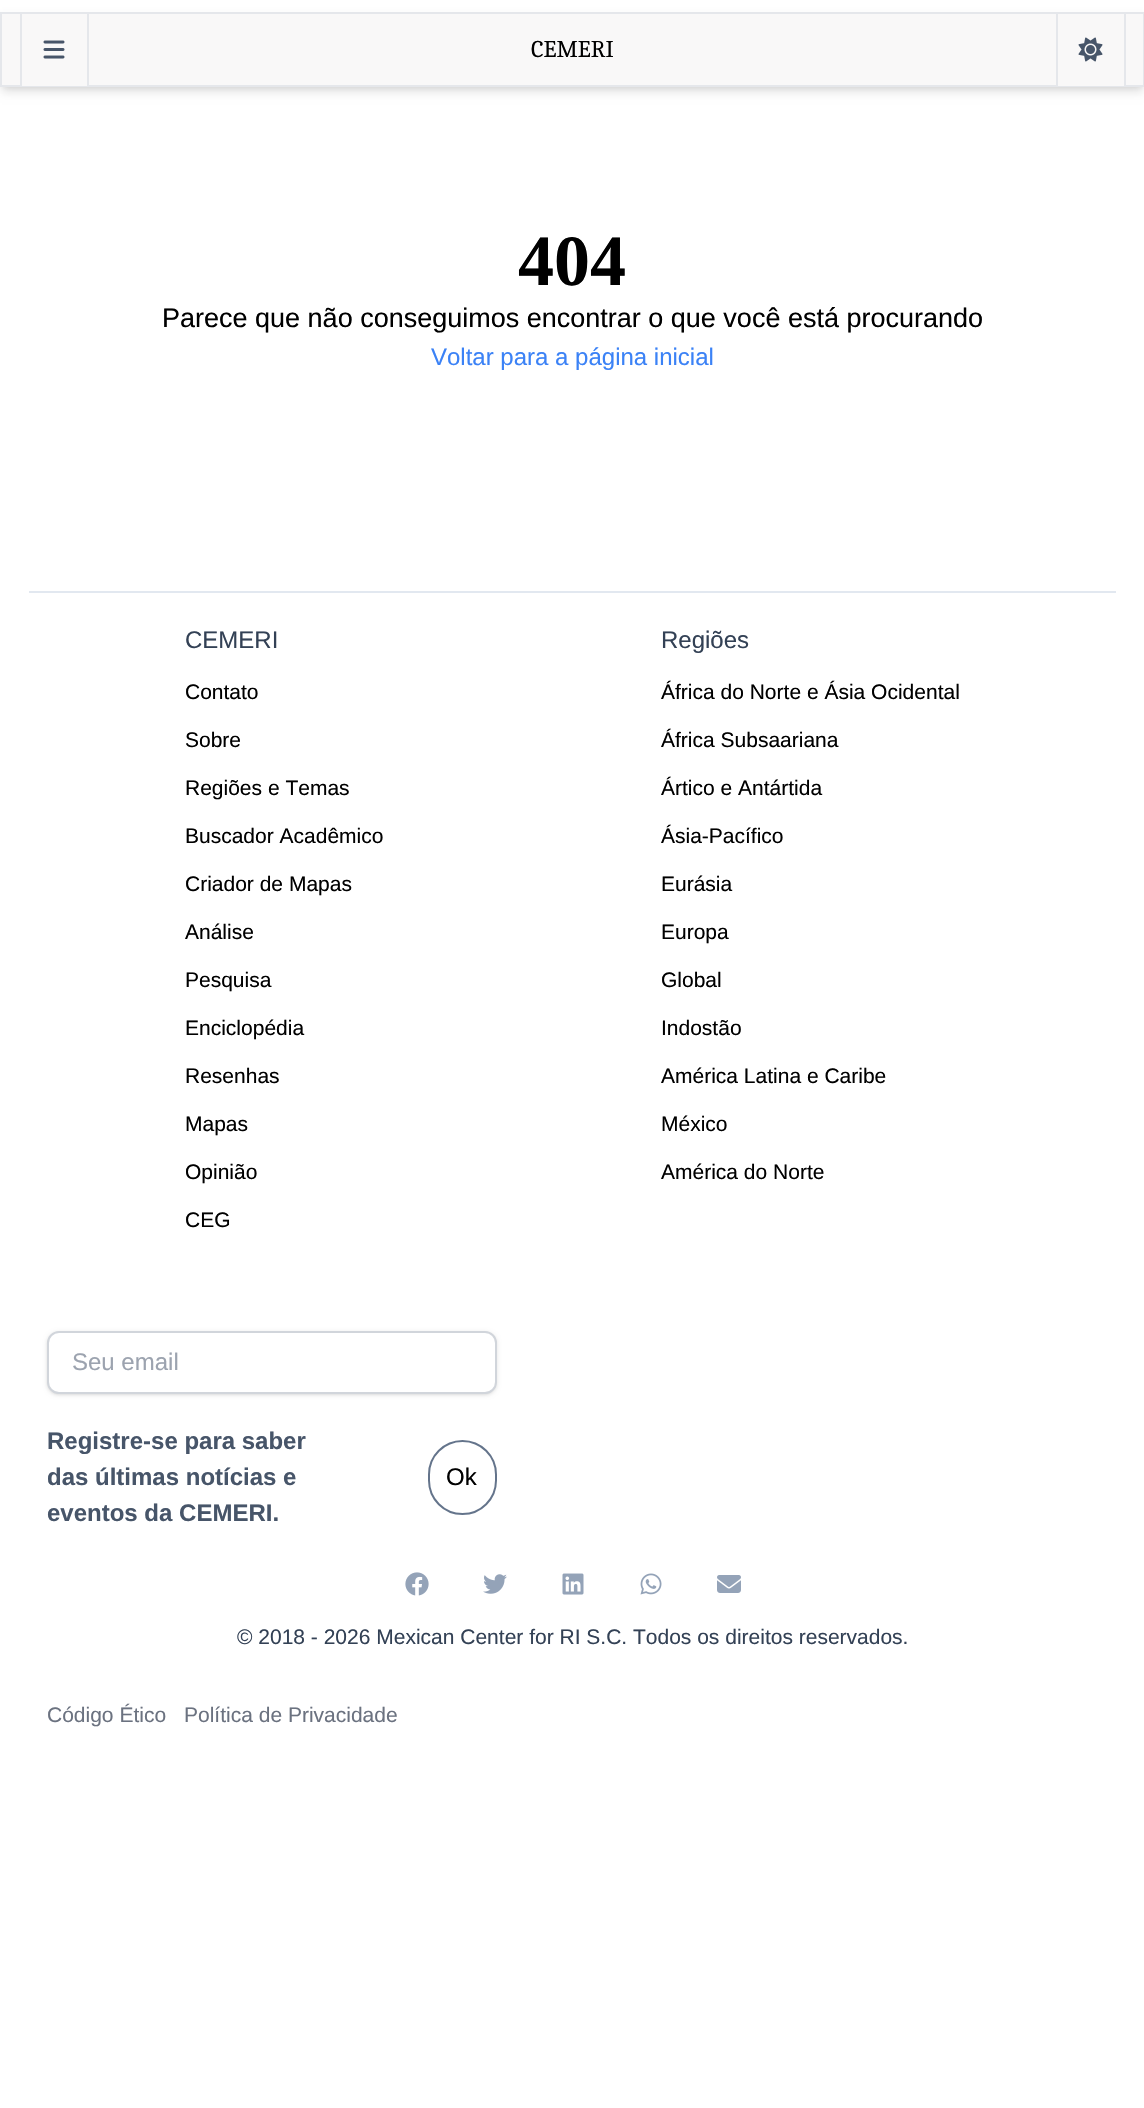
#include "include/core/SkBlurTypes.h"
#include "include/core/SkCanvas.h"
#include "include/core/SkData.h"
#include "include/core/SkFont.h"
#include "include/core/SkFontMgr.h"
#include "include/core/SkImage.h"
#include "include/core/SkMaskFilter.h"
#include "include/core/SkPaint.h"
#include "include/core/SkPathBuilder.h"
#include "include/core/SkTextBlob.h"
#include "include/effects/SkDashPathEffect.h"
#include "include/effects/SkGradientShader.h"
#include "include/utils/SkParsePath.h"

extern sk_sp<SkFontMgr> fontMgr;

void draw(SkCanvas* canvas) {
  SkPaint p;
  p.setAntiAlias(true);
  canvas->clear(SK_ColorWHITE);
  p.setColor(SkColorSetARGB(26, 0, 0, 0));
  p.setMaskFilter(SkMaskFilter::MakeBlur(kNormal_SkBlurStyle, 3));
  canvas->drawRect(SkRect::MakeLTRB(3, 18, 1142, 87), p);
  p.setMaskFilter(nullptr);
  p.setMaskFilter(SkMaskFilter::MakeBlur(kNormal_SkBlurStyle, 4.5f));
  canvas->drawRect(SkRect::MakeLTRB(2, 20, 1143, 92), p);
  p.setMaskFilter(nullptr);
  p.setColor(SkColorSetRGB(249, 248, 248));
  canvas->drawRect(SkRect::MakeLTRB(1, 13, 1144, 86), p);
  p.setStyle(SkPaint::kStroke_Style);
  p.setStrokeWidth(2);
  p.setColor(SkColorSetRGB(229, 231, 235));
  canvas->drawRect(SkRect::MakeLTRB(1, 13, 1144, 86), p);
  p.setStyle(SkPaint::kFill_Style);
  p.setColor(SkColorSetRGB(249, 248, 248));
  canvas->drawRect(SkRect::MakeLTRB(22, 85, 87, 86), p);
  p.setColor(SkColorSetRGB(229, 231, 235));
  canvas->drawRect(SkRect::MakeLTRB(87, 14, 89, 86), p);
  canvas->drawRect(SkRect::MakeLTRB(20, 14, 22, 86), p);
  canvas->drawImageRect(SkImages::DeferredFromEncodedData(SkData::MakeFromFileName("images/1.png")), SkRect::MakeLTRB(43, 40, 65, 59), SkSamplingOptions());
  p.setColor(SkColorSetRGB(249, 248, 248));
  canvas->drawRect(SkRect::MakeLTRB(1058, 85, 1124, 86), p);
  p.setColor(SkColorSetRGB(229, 231, 235));
  canvas->drawRect(SkRect::MakeLTRB(1124, 14, 1126, 86), p);
  canvas->drawRect(SkRect::MakeLTRB(1056, 14, 1058, 86), p);
  canvas->drawImageRect(SkImages::DeferredFromEncodedData(SkData::MakeFromFileName("images/2.png")), SkRect::MakeLTRB(1078, 37, 1103, 62), SkSamplingOptions());
  p.setColor(SkColorSetRGB(226, 232, 240));
  canvas->drawRect(SkRect::MakeLTRB(29, 591, 1116, 593), p);
  p.setColor(SkColorSetARGB(26, 0, 0, 0));
  p.setMaskFilter(SkMaskFilter::MakeBlur(kNormal_SkBlurStyle, 1.5f));
  canvas->drawRoundRect(SkRect::MakeLTRB(48, 1334, 495, 1394), 11, 11, p);
  p.setMaskFilter(nullptr);
  p.setMaskFilter(SkMaskFilter::MakeBlur(kNormal_SkBlurStyle, 2));
  canvas->drawRoundRect(SkRect::MakeLTRB(47, 1332, 497, 1395), 12, 12, p);
  p.setMaskFilter(nullptr);
  p.setColor(SK_ColorWHITE);
  canvas->drawRoundRect(SkRect::MakeLTRB(48, 1332, 496, 1393), 11, 11, p);
  p.setStyle(SkPaint::kStroke_Style);
  p.setColor(SkColorSetRGB(209, 213, 219));
  canvas->drawRoundRect(SkRect::MakeLTRB(48, 1332, 496, 1393), 11, 11, p);
  p.setColor(SkColorSetRGB(100, 116, 139));
  canvas->drawRoundRect(SkRect::MakeLTRB(429, 1441, 496, 1514), 33.5f, 33.5f, p);
  canvas->drawImageRect(SkImages::DeferredFromEncodedData(SkData::MakeFromFileName("images/3.png")), SkRect::MakeLTRB(405, 1572, 429, 1596), SkSamplingOptions());
  canvas->drawImageRect(SkImages::DeferredFromEncodedData(SkData::MakeFromFileName("images/4.png")), SkRect::MakeLTRB(483, 1574, 507, 1594), SkSamplingOptions());
  canvas->drawImageRect(SkImages::DeferredFromEncodedData(SkData::MakeFromFileName("images/5.png")), SkRect::MakeLTRB(562, 1573, 584, 1595), SkSamplingOptions());
  canvas->drawImageRect(SkImages::DeferredFromEncodedData(SkData::MakeFromFileName("images/6.png")), SkRect::MakeLTRB(640, 1573, 662, 1595), SkSamplingOptions());
  canvas->drawImageRect(SkImages::DeferredFromEncodedData(SkData::MakeFromFileName("images/7.png")), SkRect::MakeLTRB(717, 1575, 741, 1593), SkSamplingOptions());
  SkFont font1(fontMgr->matchFamilyStyle("Caladea", SkFontStyle::Normal()), 24);
  font1.setSubpixel(true);
  p.setStyle(SkPaint::kFill_Style);
  p.setColor(SK_ColorBLACK);
  canvas->drawString("CEMERI", 531, 57, font1, p);
  SkFont font2(fontMgr->matchFamilyStyle("Liberation Serif", SkFontStyle::Bold()), 72);
  font2.setSubpixel(true);
  canvas->drawString("404", 518, 285, font2, p);
  SkFont font3(fontMgr->matchFamilyStyle("Liberation Sans", SkFontStyle::Normal()), 27);
  font3.setSubpixel(true);
  canvas->drawString("Parece que não conseguimos encontrar o que você está procurando", 162, 327, font3, p);
  SkFont font4(fontMgr->matchFamilyStyle("Liberation Sans", SkFontStyle::Normal()), 24);
  font4.setSubpixel(true);
  p.setColor(SkColorSetRGB(59, 130, 246));
  canvas->drawString("Voltar para a página inicial", 431, 365, font4, p);
  p.setColor(SkColorSetRGB(51, 65, 85));
  canvas->drawString("CEMERI", 185, 648, font4, p);
  SkFont font5(fontMgr->matchFamilyStyle("Liberation Sans", SkFontStyle::Normal()), 21);
  font5.setSubpixel(true);
  p.setColor(SK_ColorBLACK);
  canvas->drawString("Contato", 185, 699, font5, p);
  canvas->drawString("Sobre", 185, 747, font5, p);
  canvas->drawString("Regiões e Temas", 185, 795, font5, p);
  canvas->drawString("Buscador Acadêmico", 185, 843, font5, p);
  canvas->drawString("Criador de Mapas", 185, 891, font5, p);
  canvas->drawString("Análise", 185, 939, font5, p);
  canvas->drawString("Pesquisa", 185, 987, font5, p);
  canvas->drawString("Enciclopédia", 185, 1035, font5, p);
  canvas->drawString("Resenhas", 185, 1083, font5, p);
  canvas->drawString("Mapas", 185, 1131, font5, p);
  canvas->drawString("Opinião", 185, 1179, font5, p);
  canvas->drawString("CEG", 185, 1227, font5, p);
  p.setColor(SkColorSetRGB(51, 65, 85));
  canvas->drawString("Regiões", 661, 648, font4, p);
  p.setColor(SK_ColorBLACK);
  canvas->drawString("África do Norte e Ásia Ocidental", 661, 699, font5, p);
  canvas->drawString("África Subsaariana", 661, 747, font5, p);
  canvas->drawString("Ártico e Antártida", 661, 795, font5, p);
  canvas->drawString("Ásia-Pacífico", 661, 843, font5, p);
  canvas->drawString("Eurásia", 661, 891, font5, p);
  canvas->drawString("Europa", 661, 939, font5, p);
  canvas->drawString("Global", 661, 987, font5, p);
  canvas->drawString("Indostão", 661, 1035, font5, p);
  canvas->drawString("América Latina e Caribe", 661, 1083, font5, p);
  canvas->drawString("México", 661, 1131, font5, p);
  canvas->drawString("América do Norte", 661, 1179, font5, p);
  p.setColor(SkColorSetRGB(156, 163, 175));
  canvas->drawString("Seu email", 72, 1370, font4, p);
  SkFont font6(fontMgr->matchFamilyStyle("Liberation Sans", SkFontStyle::Bold()), 24);
  font6.setSubpixel(true);
  p.setColor(SkColorSetRGB(71, 85, 105));
  canvas->drawString("Registre-se para saber", 47, 1449, font6, p);
  canvas->drawString("das últimas notícias e", 47, 1485, font6, p);
  canvas->drawString("eventos da CEMERI.", 47, 1521, font6, p);
  p.setColor(SK_ColorBLACK);
  canvas->drawString("Ok", 446, 1485, font4, p);
  p.setColor(SkColorSetRGB(51, 65, 85));
  canvas->drawString("© 2018 - 2026 Mexican Center for RI S.C. Todos os direitos reservados.", 237, 1644, font5, p);
  p.setColor(SkColorSetRGB(107, 114, 128));
  canvas->drawString("Código Ético", 47, 1722, font5, p);
  canvas->drawString("Política de Privacidade", 184, 1722, font5, p);
}
